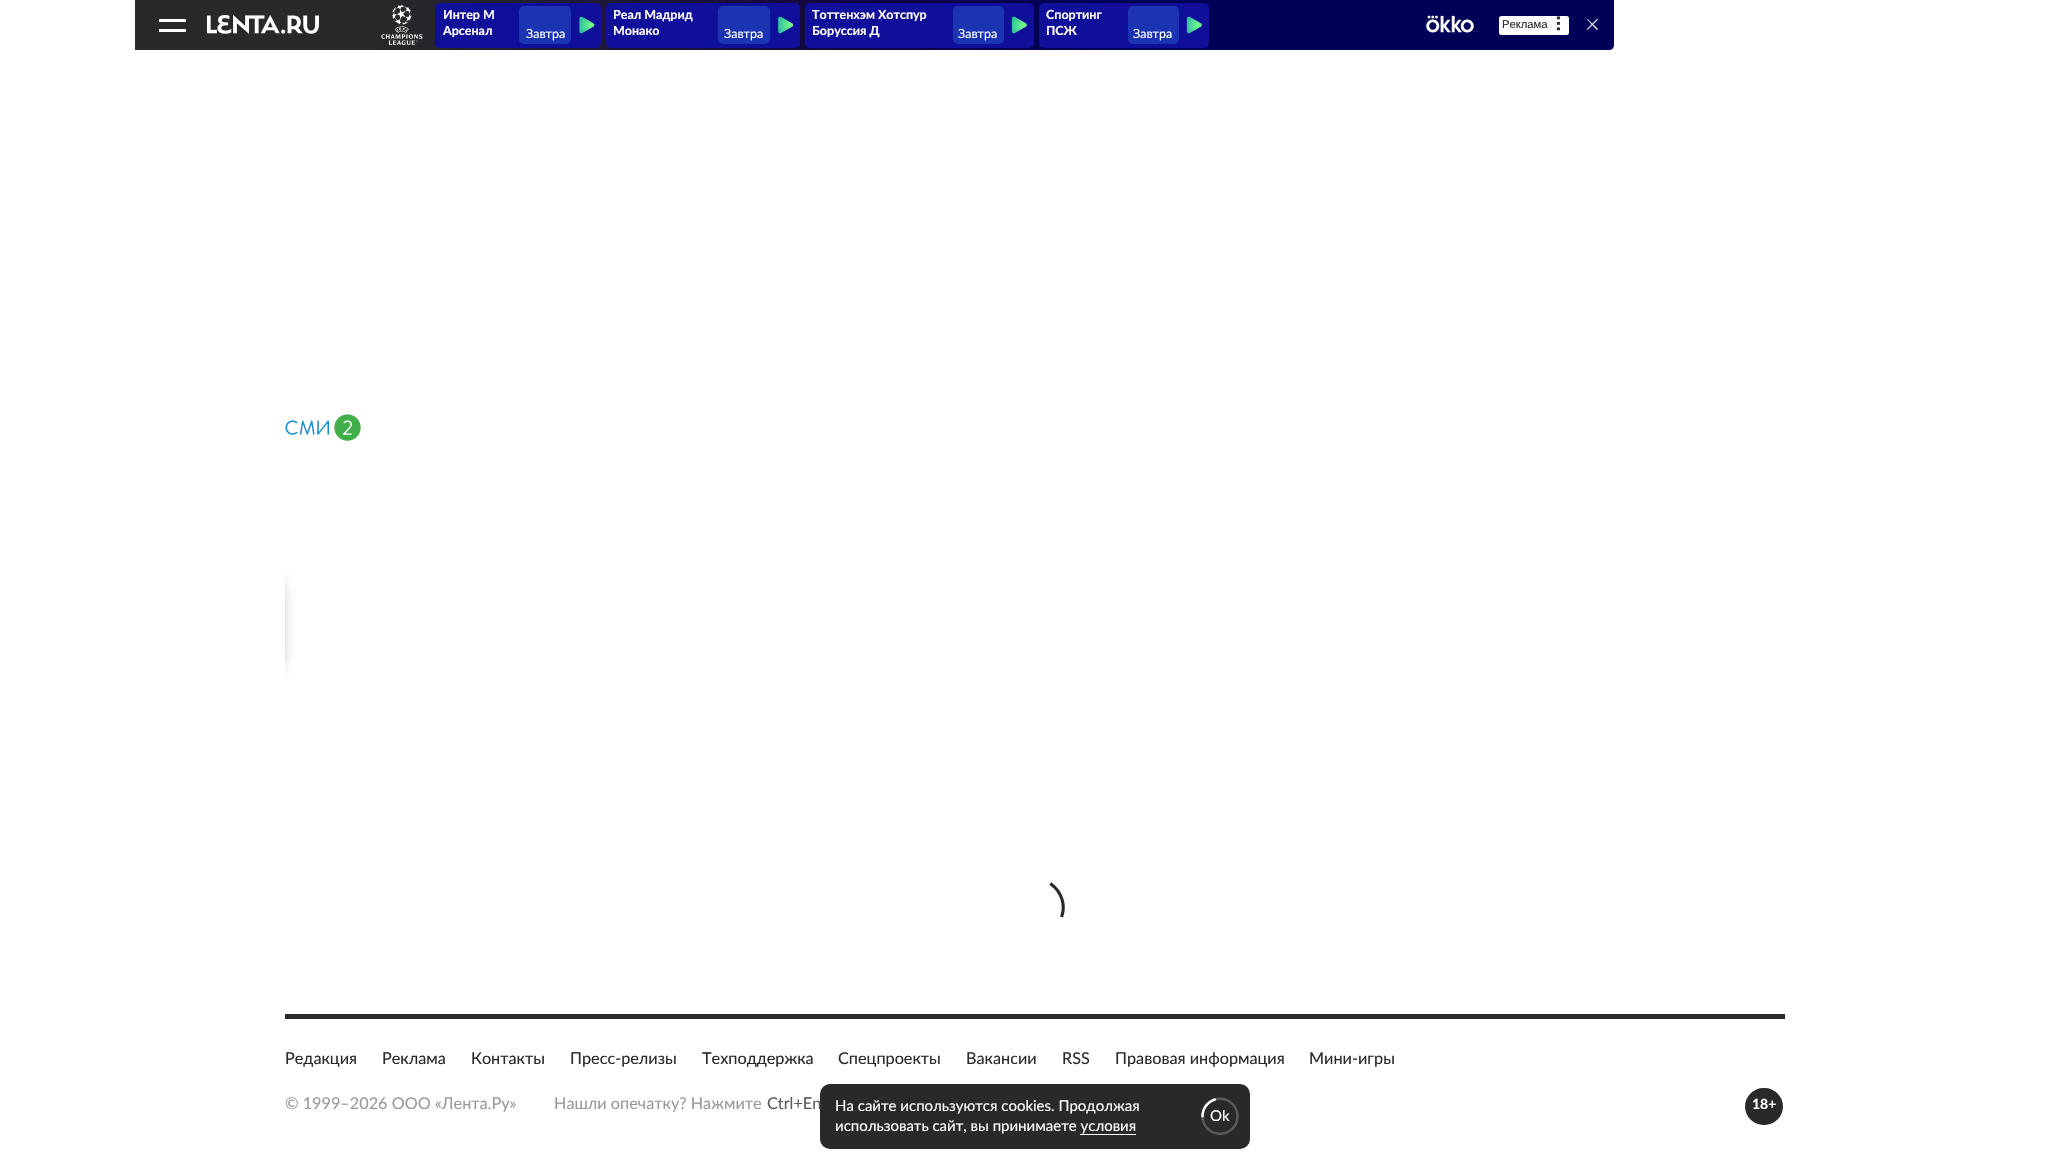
#include "include/core/SkBlurTypes.h"
#include "include/core/SkCanvas.h"
#include "include/core/SkData.h"
#include "include/core/SkFont.h"
#include "include/core/SkFontMgr.h"
#include "include/core/SkImage.h"
#include "include/core/SkMaskFilter.h"
#include "include/core/SkPaint.h"
#include "include/core/SkPathBuilder.h"
#include "include/core/SkTextBlob.h"
#include "include/effects/SkDashPathEffect.h"
#include "include/effects/SkGradientShader.h"
#include "include/utils/SkParsePath.h"

extern sk_sp<SkFontMgr> fontMgr;

void draw(SkCanvas* canvas) {
  SkPaint p;
  p.setAntiAlias(true);
  canvas->clear(SK_ColorWHITE);
  {
    const SkColor colors[] = {SkColorSetRGB(41, 41, 41), SkColorSetRGB(19, 5, 66), SkColorSetRGB(0, 0, 87), SkColorSetRGB(0, 0, 87)};
    const float stops[] = {0.16f, 0.48f, 0.66f, 1};
    const SkPoint ends[] = {{135, 55}, {1614, -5.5f}};
    p.setShader(SkGradientShader::MakeLinear(ends, colors, stops, 4, SkTileMode::kClamp));
    p.setAlpha(255);
  }
  canvas->drawPath(SkPathBuilder().moveTo(135, 0).lineTo(1614, 0).lineTo(1614, 45).cubicTo(1614, 48, 1612, 50, 1609, 50).lineTo(135, 50).close().detach(), p);
  p.setShader(nullptr);
  p.setColor(SK_ColorWHITE);
  canvas->drawRect(SkRect::MakeLTRB(159, 19, 186, 22), p);
  canvas->drawRect(SkRect::MakeLTRB(159, 29, 186, 32), p);
  canvas->drawImageRect(SkImages::DeferredFromEncodedData(SkData::MakeFromFileName("images/1.png")), SkRect::MakeLTRB(207, 15, 319, 34), SkSamplingOptions());
  canvas->drawImageRect(SkImages::DeferredFromEncodedData(SkData::MakeFromFileName("images/2.png")), SkRect::MakeLTRB(381, 5, 423, 45), SkSamplingOptions());
  p.setColor(SkColorSetRGB(15, 15, 153));
  canvas->drawRoundRect(SkRect::MakeLTRB(435, 3, 601, 48), 5, 5, p);
  p.setColor(SkColorSetRGB(27, 52, 178));
  canvas->drawRoundRect(SkRect::MakeLTRB(519, 6, 571, 44), 5, 5, p);
  canvas->drawImageRect(SkImages::DeferredFromEncodedData(SkData::MakeFromFileName("images/3.png")), SkRect::MakeLTRB(579, 16, 595, 34), SkSamplingOptions());
  p.setColor(SkColorSetRGB(15, 15, 153));
  canvas->drawRoundRect(SkRect::MakeLTRB(606, 3, 800, 48), 5, 5, p);
  p.setColor(SkColorSetRGB(27, 52, 178));
  canvas->drawRoundRect(SkRect::MakeLTRB(718, 6, 770, 44), 5, 5, p);
  canvas->drawImageRect(SkImages::DeferredFromEncodedData(SkData::MakeFromFileName("images/4.png")), SkRect::MakeLTRB(778, 16, 794, 34), SkSamplingOptions());
  p.setColor(SkColorSetRGB(15, 15, 153));
  canvas->drawRoundRect(SkRect::MakeLTRB(805, 3, 1034, 48), 5, 5, p);
  p.setColor(SkColorSetRGB(27, 52, 178));
  canvas->drawRoundRect(SkRect::MakeLTRB(953, 6, 1004, 44), 5, 5, p);
  canvas->drawImageRect(SkImages::DeferredFromEncodedData(SkData::MakeFromFileName("images/5.png")), SkRect::MakeLTRB(1011, 16, 1027, 34), SkSamplingOptions());
  p.setColor(SkColorSetRGB(15, 15, 153));
  canvas->drawRoundRect(SkRect::MakeLTRB(1039, 3, 1209, 48), 5, 5, p);
  p.setColor(SkColorSetRGB(27, 52, 178));
  canvas->drawRoundRect(SkRect::MakeLTRB(1128, 6, 1179, 44), 5, 5, p);
  canvas->drawImageRect(SkImages::DeferredFromEncodedData(SkData::MakeFromFileName("images/5.png")), SkRect::MakeLTRB(1186, 16, 1202, 34), SkSamplingOptions());
  canvas->drawImageRect(SkImages::DeferredFromEncodedData(SkData::MakeFromFileName("images/6.png")), SkRect::MakeLTRB(1426, 15, 1474, 33), SkSamplingOptions());
  p.setColor(SK_ColorWHITE);
  canvas->drawRoundRect(SkRect::MakeLTRB(1499, 16, 1569, 35), 2.5f, 2.5f, p);
  canvas->drawPath(SkPathBuilder().moveTo(1587.5f, 19).lineTo(1598, 29).lineTo(1597, 30).lineTo(1587, 19.5f).close().detach(), p);
  canvas->drawPath(SkPathBuilder().moveTo(1587, 29).lineTo(1597, 19).lineTo(1598, 19.5f).lineTo(1587.5f, 30).close().detach(), p);
  canvas->drawImageRect(SkImages::DeferredFromEncodedData(SkData::MakeFromFileName("images/7.png")), SkRect::MakeLTRB(285, 414, 361, 441), SkSamplingOptions());
  canvas->save();
  canvas->clipRect(SkRect::MakeLTRB(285, 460, 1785, 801));
  p.setColor(SK_ColorBLACK);
  p.setMaskFilter(SkMaskFilter::MakeBlur(kNormal_SkBlurStyle, 9.5f));
  canvas->drawRoundRect(SkRect::MakeLTRB(218, 583, 273, 668), 4, 4, p);
  p.setMaskFilter(nullptr);
  canvas->restore();
  p.setStyle(SkPaint::kStroke_Style);
  p.setStrokeWidth(3.1f);
  p.setStrokeCap(SkPaint::kSquare_Cap);
  p.setColor(SkColorSetRGB(41, 41, 41));
  canvas->drawPath(SkPathBuilder().moveTo(1051.5f, 884.5f).cubicTo(1061.5f, 892, 1065.5f, 904.5f, 1062, 915.5f).detach(), p);
  p.setStyle(SkPaint::kFill_Style);
  canvas->drawRect(SkRect::MakeLTRB(285, 1014, 1785, 1019), p);
  canvas->drawRoundRect(SkRect::MakeLTRB(1745, 1088, 1783, 1125), 18.5f, 18.5f, p);
  canvas->drawRoundRect(SkRect::MakeLTRB(820, 1084, 1250, 1149), 10, 10, p);
  p.setColor(SK_ColorWHITE);
  canvas->drawRect(SkRect::MakeLTRB(1080, 1134, 1136, 1135), p);
  SkFont font1(fontMgr->matchFamilyStyle("Lato", SkFontStyle::Bold()), 12.5f);
  font1.setSubpixel(true);
  canvas->drawString("Интер М", 443, 19, font1, p);
  canvas->drawString("Арсенал", 443, 35, font1, p);
  SkFont font2(fontMgr->matchFamilyStyle("Lato", SkFontStyle::Normal()), 12.5f);
  font2.setSubpixel(true);
  canvas->drawString("Завтра", 526, 38, font2, p);
  canvas->drawString("Реал Мадрид", 613, 19, font1, p);
  canvas->drawString("Монако", 613, 35, font1, p);
  canvas->drawString("Завтра", 724, 38, font2, p);
  canvas->drawString("Тоттенхэм Хотспур", 812, 19, font1, p);
  canvas->drawString("Боруссия Д", 812, 35, font1, p);
  canvas->drawString("Завтра", 958, 38, font2, p);
  canvas->drawString("Спортинг", 1046, 19, font1, p);
  canvas->drawString("ПСЖ", 1046, 35, font1, p);
  canvas->drawString("Завтра", 1133, 38, font2, p);
  SkFont font3(fontMgr->matchFamilyStyle("Liberation Sans", SkFontStyle::Normal()), 11.25f);
  font3.setSubpixel(true);
  p.setColor(SkColorSetRGB(41, 41, 41));
  canvas->drawString("Реклама", 1502, 28, font3, p);
  SkFont font4(fontMgr->matchFamilyStyle("DejaVu Sans", SkFontStyle::Normal()), 20);
  font4.setSubpixel(true);
  canvas->drawString("⠇", 1554, 32, font4, p);
  SkFont font5(fontMgr->matchFamilyStyle("Lato", SkFontStyle::Normal()), 16.25f);
  font5.setSubpixel(true);
  canvas->drawString("Редакция", 285, 1064, font5, p);
  canvas->drawString("Реклама", 382, 1064, font5, p);
  canvas->drawString("Контакты", 471, 1064, font5, p);
  canvas->drawString("Пресс-релизы", 570, 1064, font5, p);
  canvas->drawString("Техподдержка", 702, 1064, font5, p);
  canvas->drawString("Спецпроекты", 838, 1064, font5, p);
  canvas->drawString("Вакансии", 966, 1064, font5, p);
  canvas->drawString("RSS", 1062, 1064, font5, p);
  canvas->drawString("Правовая информация", 1115, 1064, font5, p);
  canvas->drawString("Мини-игры", 1309, 1064, font5, p);
  p.setColor(SkColorSetRGB(153, 153, 153));
  canvas->drawString("© 1999–2026 ООО «Лента.Ру»", 285, 1109, font5, p);
  canvas->drawString("Нашли опечатку? Нажмите", 554, 1109, font5, p);
  p.setColor(SkColorSetRGB(89, 89, 89));
  canvas->drawString("Ctrl+En", 767, 1109, font5, p);
  SkFont font6(fontMgr->matchFamilyStyle("Lato", SkFontStyle::Bold()), 14);
  font6.setSubpixel(true);
  p.setColor(SK_ColorWHITE);
  canvas->drawString("18+", 1752, 1109, font6, p);
  SkFont font7(fontMgr->matchFamilyStyle("Lato", SkFontStyle::Normal()), 15);
  font7.setSubpixel(true);
  canvas->drawString("На сайте используются cookies. Продолжая", 835, 1111, font7, p);
  canvas->drawString("использовать сайт, вы принимаете условия", 835, 1131, font7, p);
  canvas->drawString("Ok", 1210, 1121, font7, p);
  canvas->drawImageRect(SkImages::DeferredFromEncodedData(SkData::MakeFromFileName("images/8.png")), SkRect::MakeLTRB(1201, 1097, 1239, 1135), SkSamplingOptions());
}
